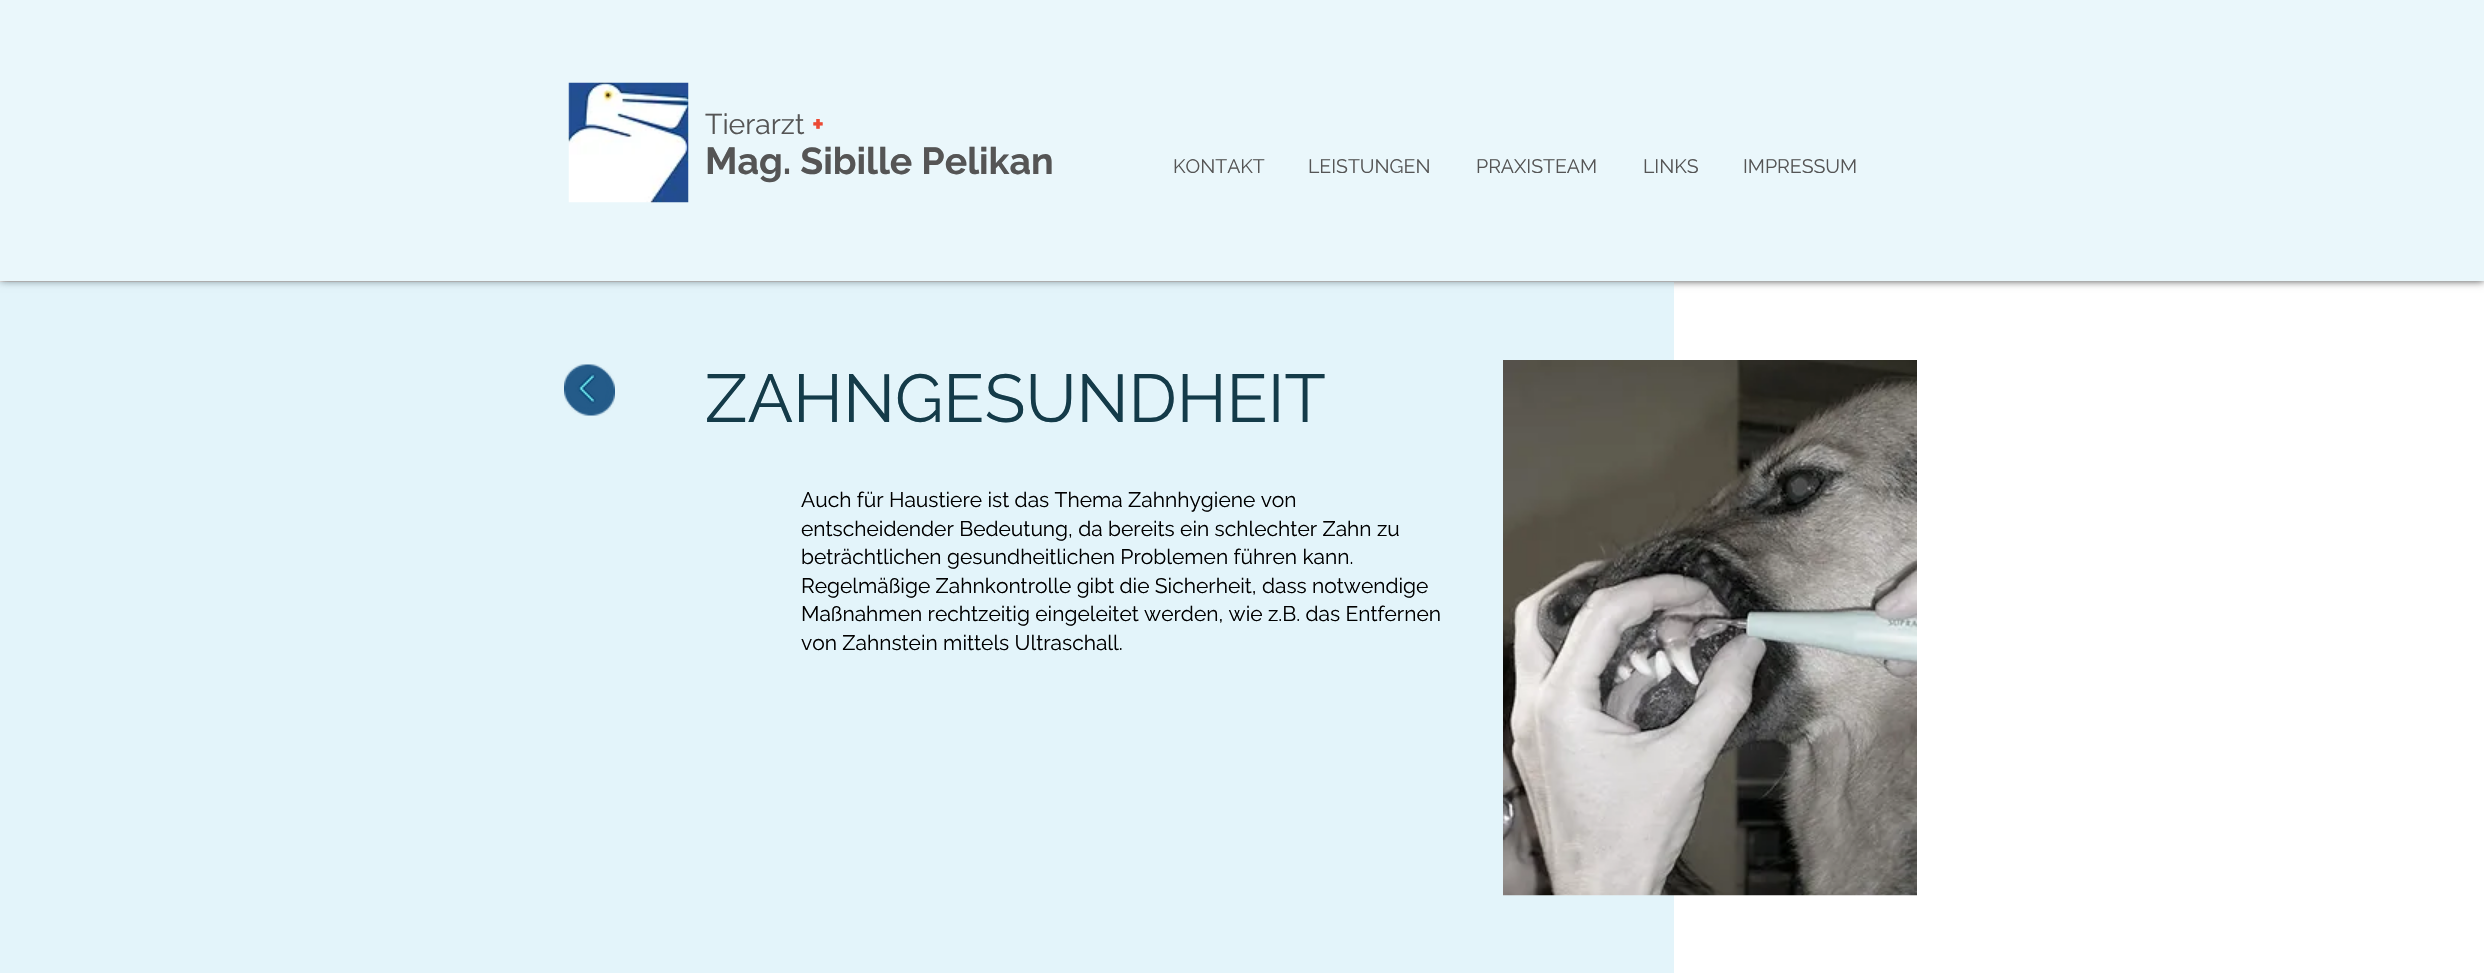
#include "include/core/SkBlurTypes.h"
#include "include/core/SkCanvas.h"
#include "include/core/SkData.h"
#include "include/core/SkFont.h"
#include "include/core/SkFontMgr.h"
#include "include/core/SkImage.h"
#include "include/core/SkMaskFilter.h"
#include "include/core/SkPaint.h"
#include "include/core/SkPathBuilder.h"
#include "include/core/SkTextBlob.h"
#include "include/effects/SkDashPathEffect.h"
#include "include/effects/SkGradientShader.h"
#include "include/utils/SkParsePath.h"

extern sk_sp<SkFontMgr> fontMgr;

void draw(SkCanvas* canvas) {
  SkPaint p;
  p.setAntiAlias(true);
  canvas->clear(SK_ColorWHITE);
  canvas->save();
  canvas->clipPath(SkPathBuilder(SkPathFillType::kEvenOdd).moveTo(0, 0).lineTo(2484, 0).lineTo(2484, 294).lineTo(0, 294).close().moveTo(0, 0).lineTo(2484, 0).lineTo(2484, 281).lineTo(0, 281).close().detach(), true);
  p.setColor(SkColorSetARGB(179, 0, 0, 0));
  p.setMaskFilter(SkMaskFilter::MakeBlur(kNormal_SkBlurStyle, 4));
  canvas->drawRect(SkRect::MakeLTRB(0, 0, 2484, 281), p);
  p.setMaskFilter(nullptr);
  canvas->restore();
  p.setColor(SkColorSetARGB(77, 185, 228, 243));
  canvas->drawRect(SkRect::MakeLTRB(0, 0, 2484, 281), p);
  canvas->drawImageRect(SkImages::DeferredFromEncodedData(SkData::MakeFromFileName("images/1.png")), SkRect::MakeLTRB(568, 82, 689, 203), SkSamplingOptions());
  p.setColor(SkColorSetARGB(102, 185, 228, 243));
  canvas->drawRect(SkRect::MakeLTRB(0, 282, 1674, 973), p);
  canvas->drawImageRect(SkImages::DeferredFromEncodedData(SkData::MakeFromFileName("images/3.png")), SkRect::MakeLTRB(567, 367, 615, 416), SkSamplingOptions());
  canvas->drawImageRect(SkImages::DeferredFromEncodedData(SkData::MakeFromFileName("images/2.png")), SkRect::MakeLTRB(564, 364, 612, 413), SkSamplingOptions());
  canvas->drawImageRect(SkImages::DeferredFromEncodedData(SkData::MakeFromFileName("images/4.png")), SkRect::MakeLTRB(1503, 360, 1917, 896), SkSamplingOptions());
  SkFont font1(fontMgr->matchFamilyStyle("Raleway", SkFontStyle::Normal()), 28.5f);
  font1.setSubpixel(true);
  p.setColor(SkColorSetRGB(85, 85, 85));
  canvas->drawString("Tierarzt", 705, 134, font1, p);
  SkFont font2(fontMgr->matchFamilyStyle("Raleway", SkFontStyle::Bold()), 28.5f);
  font2.setSubpixel(true);
  p.setColor(SkColorSetRGB(236, 74, 52));
  canvas->drawString("+", 812, 134, font2, p);
  SkFont font3(fontMgr->matchFamilyStyle("Raleway", SkFontStyle::Bold()), 37.5f);
  font3.setSubpixel(true);
  p.setColor(SkColorSetRGB(85, 85, 85));
  canvas->drawString("Mag. Sibille Pelikan", 705, 174, font3, p);
  SkFont font4(fontMgr->matchFamilyStyle("Raleway", SkFontStyle::Normal()), 19.5f);
  font4.setSubpixel(true);
  canvas->drawString("KONTAKT", 1173, 173, font4, p);
  canvas->drawString("LEISTUNGEN", 1308, 173, font4, p);
  canvas->drawString("PRAXISTEAM", 1476, 173, font4, p);
  canvas->drawString("LINKS", 1643, 173, font4, p);
  canvas->drawString("IMPRESSUM", 1743, 173, font4, p);
  SkFont font5(fontMgr->matchFamilyStyle("Raleway", SkFontStyle::Normal()), 67.5f);
  font5.setSubpixel(true);
  p.setColor(SkColorSetRGB(20, 59, 73));
  canvas->drawString("ZAHNGESUNDHEIT", 705, 422, font5, p);
  SkFont font6(fontMgr->matchFamilyStyle("Raleway", SkFontStyle::Normal()), 21);
  font6.setSubpixel(true);
  p.setColor(SK_ColorBLACK);
  canvas->drawString("Auch für Haustiere ist das Thema Zahnhygiene von", 801, 507, font6, p);
  canvas->drawString("entscheidender Bedeutung, da bereits ein schlechter Zahn zu", 801, 536, font6, p);
  canvas->drawString("beträchtlichen gesundheitlichen Problemen führen kann.", 801, 564, font6, p);
  canvas->drawString("Regelmäßige Zahnkontrolle gibt die Sicherheit, dass notwendige", 801, 593, font6, p);
  canvas->drawString("Maßnahmen rechtzeitig eingeleitet werden, wie z.B. das Entfernen", 801, 621, font6, p);
  canvas->drawString("von Zahnstein mittels Ultraschall.", 801, 650, font6, p);
}
